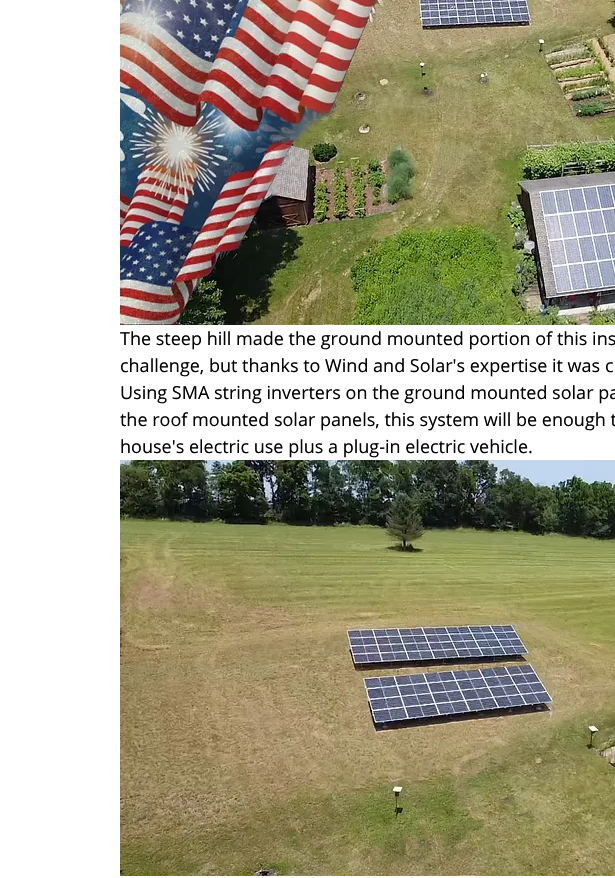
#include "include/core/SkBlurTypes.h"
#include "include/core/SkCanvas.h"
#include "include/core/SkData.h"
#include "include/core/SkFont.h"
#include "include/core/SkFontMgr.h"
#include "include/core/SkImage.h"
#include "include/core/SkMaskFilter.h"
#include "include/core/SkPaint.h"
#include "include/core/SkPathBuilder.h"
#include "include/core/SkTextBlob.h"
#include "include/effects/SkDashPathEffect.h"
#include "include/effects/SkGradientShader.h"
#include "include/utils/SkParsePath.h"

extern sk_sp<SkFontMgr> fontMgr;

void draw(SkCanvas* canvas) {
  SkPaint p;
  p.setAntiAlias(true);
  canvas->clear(SK_ColorWHITE);
  canvas->drawImageRect(SkImages::DeferredFromEncodedData(SkData::MakeFromFileName("images/1.png")), SkRect::MakeLTRB(120, 0, 615, 325), SkSamplingOptions());
  canvas->drawImageRect(SkImages::DeferredFromEncodedData(SkData::MakeFromFileName("images/2.png")), SkRect::MakeLTRB(120, 460, 615, 876), SkSamplingOptions());
  SkFont font1(fontMgr->matchFamilyStyle("Open Sans", SkFontStyle::Normal()), 18);
  font1.setSubpixel(true);
  p.setColor(SK_ColorBLACK);
  canvas->drawString("The steep hill made the ground mounted portion of this ins", 120, 345, font1, p);
  canvas->drawString("challenge, but thanks to Wind and Solar's expertise it was c", 120, 372, font1, p);
  canvas->drawString("Using SMA string inverters on the ground mounted solar pa", 120, 399, font1, p);
  canvas->drawString("the roof mounted solar panels, this system will be enough t", 120, 426, font1, p);
  canvas->drawString("house's electric use plus a plug-in electric vehicle.", 120, 453, font1, p);
}
